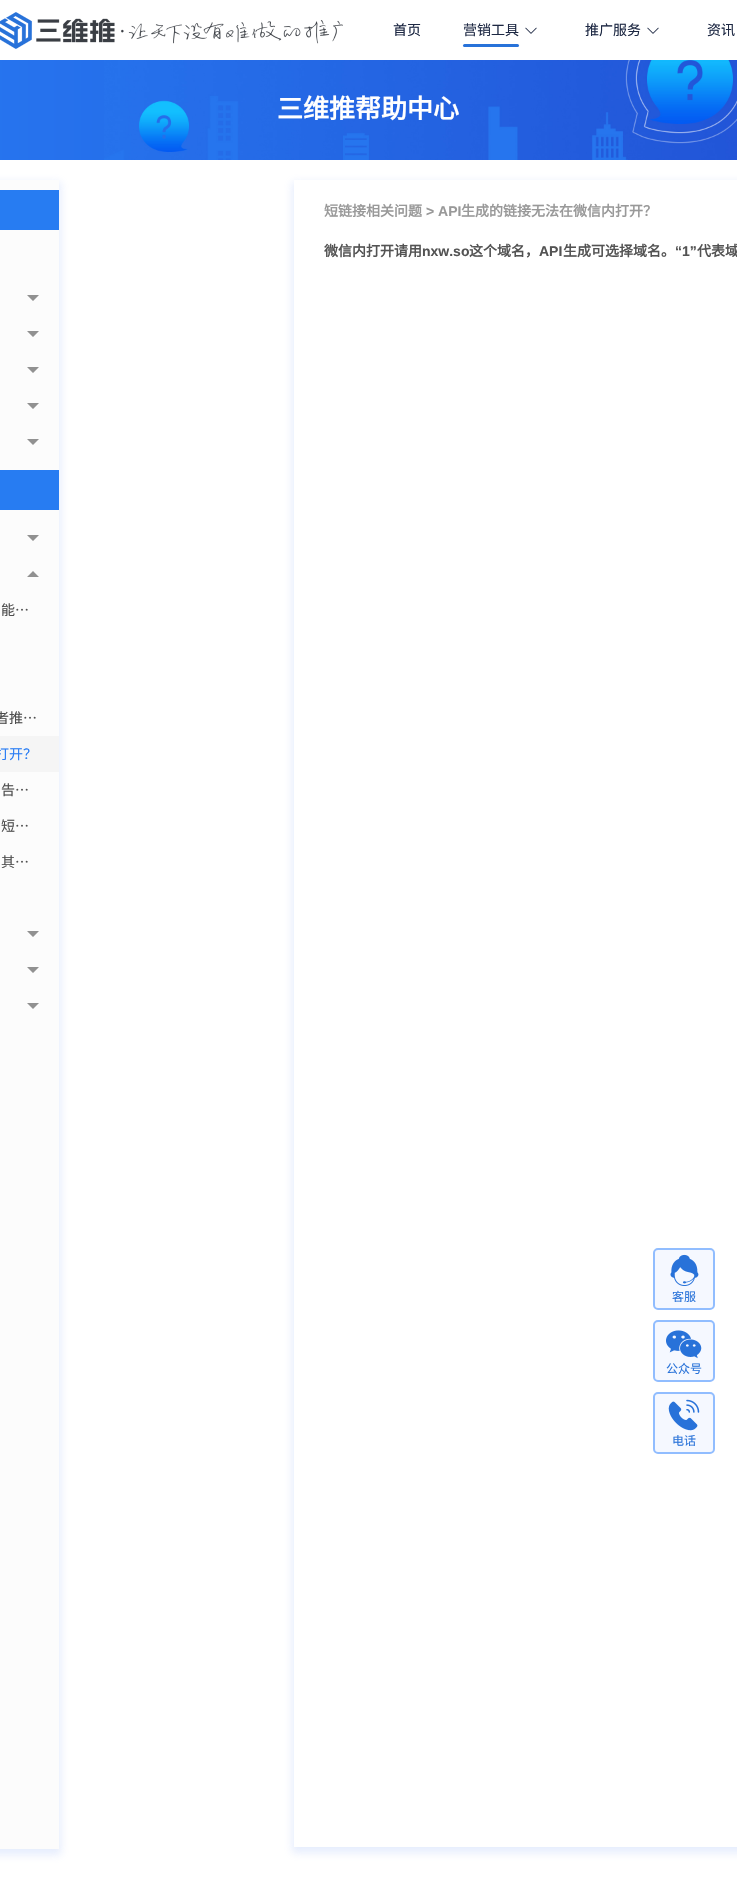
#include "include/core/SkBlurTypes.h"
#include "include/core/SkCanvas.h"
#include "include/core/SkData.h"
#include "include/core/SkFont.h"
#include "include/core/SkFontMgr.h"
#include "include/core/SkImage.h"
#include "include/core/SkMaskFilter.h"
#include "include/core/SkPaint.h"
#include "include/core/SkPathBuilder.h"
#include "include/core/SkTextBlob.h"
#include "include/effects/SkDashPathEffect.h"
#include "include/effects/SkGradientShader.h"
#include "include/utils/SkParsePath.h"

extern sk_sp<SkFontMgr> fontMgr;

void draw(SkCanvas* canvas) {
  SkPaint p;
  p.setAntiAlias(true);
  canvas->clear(SK_ColorWHITE);
  canvas->drawImageRect(SkImages::DeferredFromEncodedData(SkData::MakeFromFileName("images/1.png")), SkRect::MakeLTRB(0, 12, 343, 49), SkSamplingOptions());
  canvas->drawImageRect(SkImages::DeferredFromEncodedData(SkData::MakeFromFileName("images/2.png")), SkRect::MakeLTRB(525, 27, 537, 34), SkSamplingOptions());
  p.setColor(SkColorSetRGB(40, 114, 217));
  canvas->drawRoundRect(SkRect::MakeLTRB(463, 44, 519, 47), 1.5f, 1.5f, p);
  canvas->drawImageRect(SkImages::DeferredFromEncodedData(SkData::MakeFromFileName("images/2.png")), SkRect::MakeLTRB(647, 27, 659, 34), SkSamplingOptions());
  {
    const SkColor colors[] = {SkColorSetRGB(39, 124, 244), SkColorSetRGB(33, 79, 212)};
    const float stops[] = {0, 1};
    const SkPoint ends[] = {{-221, 110}, {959, 110}};
    p.setShader(SkGradientShader::MakeLinear(ends, colors, stops, 2, SkTileMode::kClamp));
    p.setAlpha(255);
  }
  canvas->drawRect(SkRect::MakeLTRB(0, 60, 104, 160), p);
  canvas->drawImageRect(SkImages::DeferredFromEncodedData(SkData::MakeFromFileName("images/3.png")), SkRect::MakeLTRB(104, 60, 737, 160), SkSamplingOptions());
  canvas->save();
  canvas->clipPath(SkPathBuilder(SkPathFillType::kEvenOdd).moveTo(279, 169).lineTo(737, 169).lineTo(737, 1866).lineTo(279, 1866).close().moveTo(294, 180).lineTo(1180, 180).lineTo(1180, 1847).lineTo(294, 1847).close().detach(), true);
  p.setShader(nullptr);
  p.setColor(SkColorSetARGB(51, 132, 163, 246));
  p.setMaskFilter(SkMaskFilter::MakeBlur(kNormal_SkBlurStyle, 4));
  canvas->drawRect(SkRect::MakeLTRB(292, 182, 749, 1853), p);
  p.setMaskFilter(nullptr);
  canvas->restore();
  p.setMaskFilter(SkMaskFilter::MakeBlur(kNormal_SkBlurStyle, 4));
  canvas->drawRect(SkRect::MakeLTRB(-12, 182, 61, 1855), p);
  p.setMaskFilter(nullptr);
  p.setColor(SkColorSetRGB(252, 252, 252));
  canvas->drawRect(SkRect::MakeLTRB(0, 180, 59, 1849), p);
  p.setColor(SkColorSetRGB(39, 124, 242));
  canvas->drawRect(SkRect::MakeLTRB(0, 190, 59, 230), p);
  p.setColor(SkColorSetRGB(145, 145, 145));
  canvas->drawPath(SkPathBuilder().moveTo(27, 295).lineTo(39, 295).lineTo(33, 301).close().moveTo(27, 331).lineTo(39, 331).lineTo(33, 337).close().detach(), p);
  canvas->drawPath(SkPathBuilder().moveTo(27, 367).lineTo(39, 367).lineTo(33, 373).close().moveTo(27, 403).lineTo(39, 403).lineTo(33, 409).close().detach(), p);
  canvas->drawPath(SkPathBuilder().moveTo(27, 439).lineTo(39, 439).lineTo(33, 445).close().detach(), p);
  p.setColor(SkColorSetRGB(39, 124, 242));
  canvas->drawRect(SkRect::MakeLTRB(0, 470, 59, 510), p);
  p.setColor(SkColorSetRGB(145, 145, 145));
  canvas->drawPath(SkPathBuilder().moveTo(27, 535).lineTo(39, 535).lineTo(33, 541).close().moveTo(39, 577).lineTo(27, 577).lineTo(33, 571).close().detach(), p);
  p.setColor(SkColorSetRGB(245, 245, 245));
  canvas->drawRect(SkRect::MakeLTRB(0, 736, 59, 772), p);
  p.setColor(SkColorSetRGB(145, 145, 145));
  canvas->drawPath(SkPathBuilder().moveTo(27, 931).lineTo(39, 931).lineTo(33, 937).close().moveTo(27, 967).lineTo(39, 967).lineTo(33, 973).close().detach(), p);
  canvas->drawPath(SkPathBuilder().moveTo(27, 1003).lineTo(39, 1003).lineTo(33, 1009).close().detach(), p);
  p.setColor(SkColorSetRGB(245, 248, 255));
  canvas->drawRoundRect(SkRect::MakeLTRB(654, 1249, 714, 1309), 4, 4, p);
  p.setStyle(SkPaint::kStroke_Style);
  p.setStrokeWidth(2);
  p.setColor(SkColorSetRGB(145, 189, 255));
  canvas->drawRoundRect(SkRect::MakeLTRB(654, 1249, 714, 1309), 4, 4, p);
  canvas->drawImageRect(SkImages::DeferredFromEncodedData(SkData::MakeFromFileName("images/4.png")), SkRect::MakeLTRB(670, 1254, 699, 1286), SkSamplingOptions());
  p.setStyle(SkPaint::kFill_Style);
  p.setColor(SkColorSetRGB(245, 248, 255));
  canvas->drawRoundRect(SkRect::MakeLTRB(654, 1321, 714, 1381), 4, 4, p);
  p.setStyle(SkPaint::kStroke_Style);
  p.setColor(SkColorSetRGB(145, 189, 255));
  canvas->drawRoundRect(SkRect::MakeLTRB(654, 1321, 714, 1381), 4, 4, p);
  canvas->drawImageRect(SkImages::DeferredFromEncodedData(SkData::MakeFromFileName("images/5.png")), SkRect::MakeLTRB(666, 1330, 702, 1359), SkSamplingOptions());
  p.setStyle(SkPaint::kFill_Style);
  p.setColor(SkColorSetRGB(245, 248, 255));
  canvas->drawRoundRect(SkRect::MakeLTRB(654, 1393, 714, 1453), 4, 4, p);
  p.setStyle(SkPaint::kStroke_Style);
  p.setColor(SkColorSetRGB(145, 189, 255));
  canvas->drawRoundRect(SkRect::MakeLTRB(654, 1393, 714, 1453), 4, 4, p);
  canvas->drawImageRect(SkImages::DeferredFromEncodedData(SkData::MakeFromFileName("images/6.png")), SkRect::MakeLTRB(668, 1399, 700, 1431), SkSamplingOptions());
  SkFont font1(fontMgr->matchFamilyStyle("Noto Sans CJK SC", SkFontStyle::Normal()), 14);
  font1.setSubpixel(true);
  p.setStyle(SkPaint::kFill_Style);
  p.setColor(SkColorSetRGB(29, 40, 67));
  canvas->drawString("首页", 393, 35, font1, p);
  canvas->drawString("营销工具", 463, 35, font1, p);
  canvas->drawString("推广服务", 585, 35, font1, p);
  canvas->drawString("资讯", 707, 35, font1, p);
  SkFont font2(fontMgr->matchFamilyStyle("Noto Sans CJK SC", SkFontStyle::Bold()), 26);
  font2.setSubpixel(true);
  p.setColor(SK_ColorWHITE);
  canvas->drawString("三维推帮助中心", 277, 118, font2, p);
  SkFont font3(fontMgr->matchFamilyStyle("Noto Sans CJK SC", SkFontStyle::Bold()), 14);
  font3.setSubpixel(true);
  p.setColor(SkColorSetRGB(153, 153, 153));
  canvas->drawString("短链接相关问题", 324, 216, font3, p);
  SkFont font4(fontMgr->matchFamilyStyle("Liberation Sans", SkFontStyle::Bold()), 14);
  font4.setSubpixel(true);
  canvas->drawString("> API", 426, 216, font4, p);
  canvas->drawString("生成的链接无法在微信内打开？", 461, 216, font3, p);
  p.setColor(SkColorSetRGB(83, 83, 83));
  canvas->drawString("微信内打开请用", 324, 256, font3, p);
  canvas->drawString("nxw.so", 422, 256, font4, p);
  canvas->drawString("这个域名，", 469, 256, font3, p);
  canvas->drawString("API", 539, 256, font4, p);
  canvas->drawString("生成可选择域名。", 563, 256, font3, p);
  canvas->drawString("“1”", 675, 256, font4, p);
  canvas->drawString("代表域", 697, 256, font3, p);
  p.setColor(SkColorSetRGB(77, 77, 77));
  canvas->drawString("能…", 1, 615, font1, p);
  canvas->drawString("者推…", -5, 723, font1, p);
  p.setColor(SkColorSetRGB(39, 124, 244));
  canvas->drawString("打开？", -5, 759, font1, p);
  p.setColor(SkColorSetRGB(77, 77, 77));
  canvas->drawString("告…", 1, 795, font1, p);
  canvas->drawString("短…", 1, 831, font1, p);
  canvas->drawString("其…", 1, 867, font1, p);
  SkFont font5(fontMgr->matchFamilyStyle("Noto Sans CJK SC", SkFontStyle::Normal()), 12);
  font5.setSubpixel(true);
  p.setColor(SkColorSetRGB(40, 114, 217));
  canvas->drawString("客服", 672, 1301, font5, p);
  canvas->drawString("公众号", 666, 1373, font5, p);
  canvas->drawString("电话", 672, 1445, font5, p);
}
